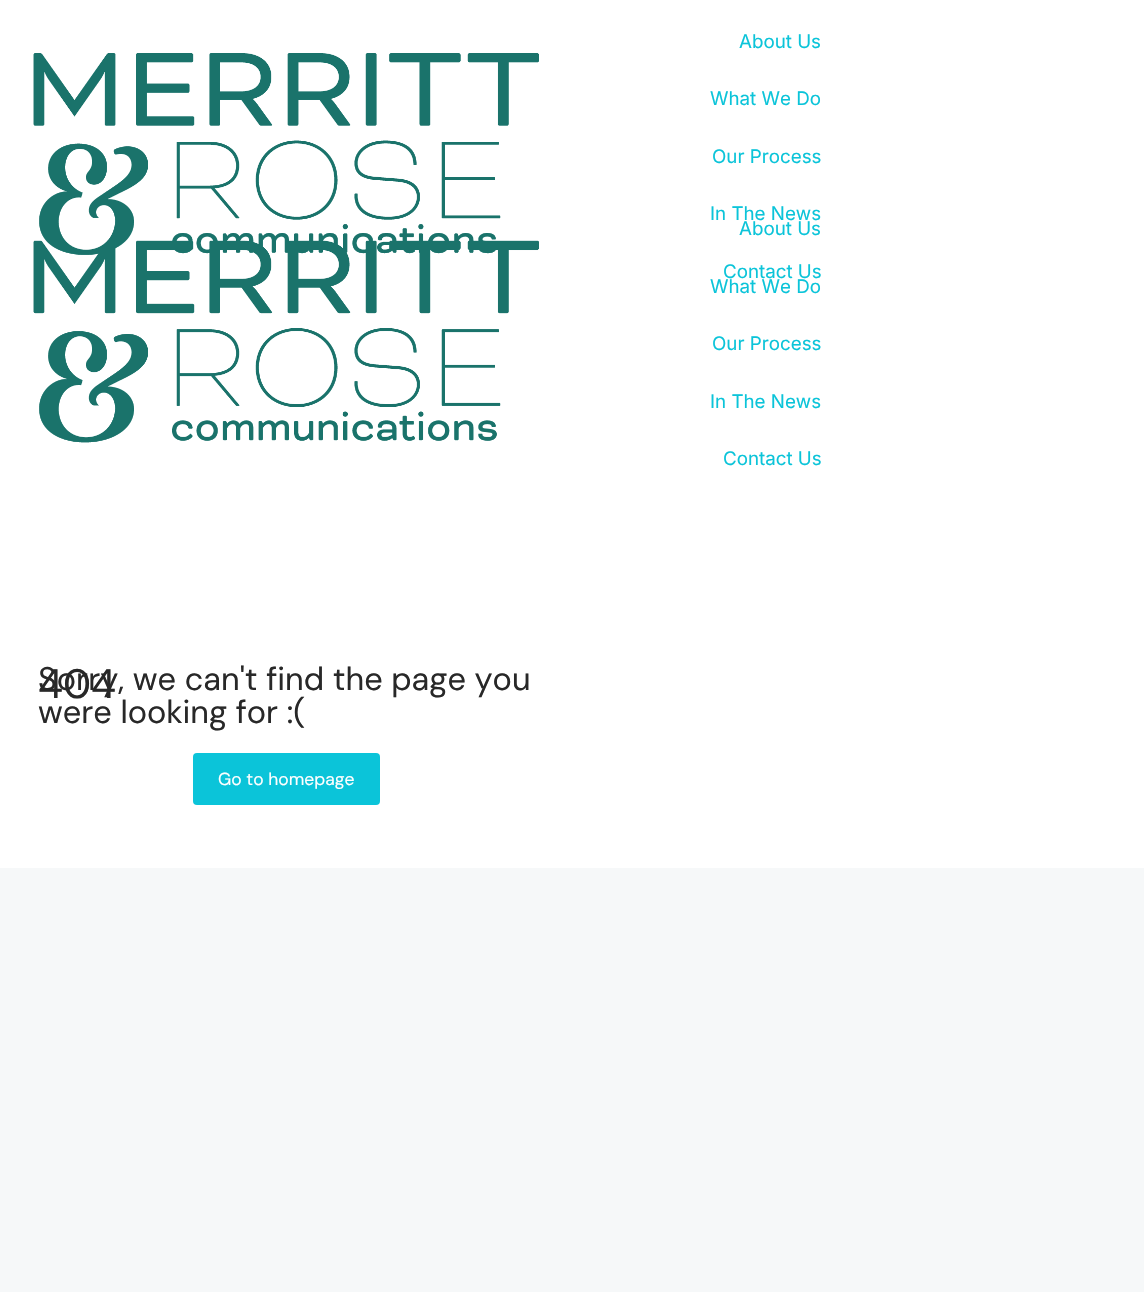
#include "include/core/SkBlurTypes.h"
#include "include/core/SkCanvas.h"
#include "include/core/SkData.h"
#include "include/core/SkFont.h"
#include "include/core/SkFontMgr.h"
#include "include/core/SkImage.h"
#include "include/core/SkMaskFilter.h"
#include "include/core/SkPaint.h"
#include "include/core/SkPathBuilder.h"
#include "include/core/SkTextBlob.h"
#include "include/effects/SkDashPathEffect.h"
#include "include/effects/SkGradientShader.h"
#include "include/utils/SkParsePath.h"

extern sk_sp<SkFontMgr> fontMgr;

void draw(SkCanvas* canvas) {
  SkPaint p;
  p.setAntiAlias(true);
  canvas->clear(SkColorSetRGB(246, 248, 249));
  p.setColor(SK_ColorWHITE);
  canvas->drawRect(SkRect::MakeLTRB(0, 0, 1144, 868), p);
  canvas->drawImageRect(SkImages::DeferredFromEncodedData(SkData::MakeFromFileName("images/1.png")), SkRect::MakeLTRB(33, 53, 539, 255), SkSamplingOptions());
  canvas->drawImageRect(SkImages::DeferredFromEncodedData(SkData::MakeFromFileName("images/2.png")), SkRect::MakeLTRB(33, 240, 539, 443), SkSamplingOptions());
  p.setColor(SkColorSetRGB(11, 196, 217));
  canvas->drawRoundRect(SkRect::MakeLTRB(193, 753, 380, 805), 4, 4, p);
  SkFont font1(fontMgr->matchFamilyStyle("Inter", SkFontStyle::Normal()), 18.75f);
  font1.setSubpixel(true);
  canvas->drawString("About Us", 739, 48, font1, p);
  canvas->drawString("What We Do", 710, 105, font1, p);
  canvas->drawString("Our Process", 712, 163, font1, p);
  canvas->drawString("In The News", 710, 220, font1, p);
  canvas->drawString("Contact Us", 723, 278, font1, p);
  canvas->drawString("About Us", 739, 235, font1, p);
  canvas->drawString("What We Do", 710, 293, font1, p);
  canvas->drawString("Our Process", 712, 350, font1, p);
  canvas->drawString("In The News", 710, 408, font1, p);
  canvas->drawString("Contact Us", 723, 465, font1, p);
  SkFont font2(fontMgr->matchFamilyStyle("DM Sans", SkFontStyle::Normal()), 32.5f);
  font2.setSubpixel(true);
  p.setColor(SkColorSetRGB(40, 40, 40));
  canvas->drawString("Sorry, we can't find the page you", 38, 690, font2, p);
  canvas->drawString("were looking for :(", 38, 723, font2, p);
  SkFont font3(fontMgr->matchFamilyStyle("DM Sans", SkFontStyle::Normal()), 41);
  font3.setSubpixel(true);
  canvas->drawString("404", 38, 698, font3, p);
  SkFont font4(fontMgr->matchFamilyStyle("DM Sans", SkFontStyle::Normal()), 17.5f);
  font4.setSubpixel(true);
  p.setColor(SK_ColorWHITE);
  canvas->drawString("Go to homepage", 218, 785, font4, p);
}
